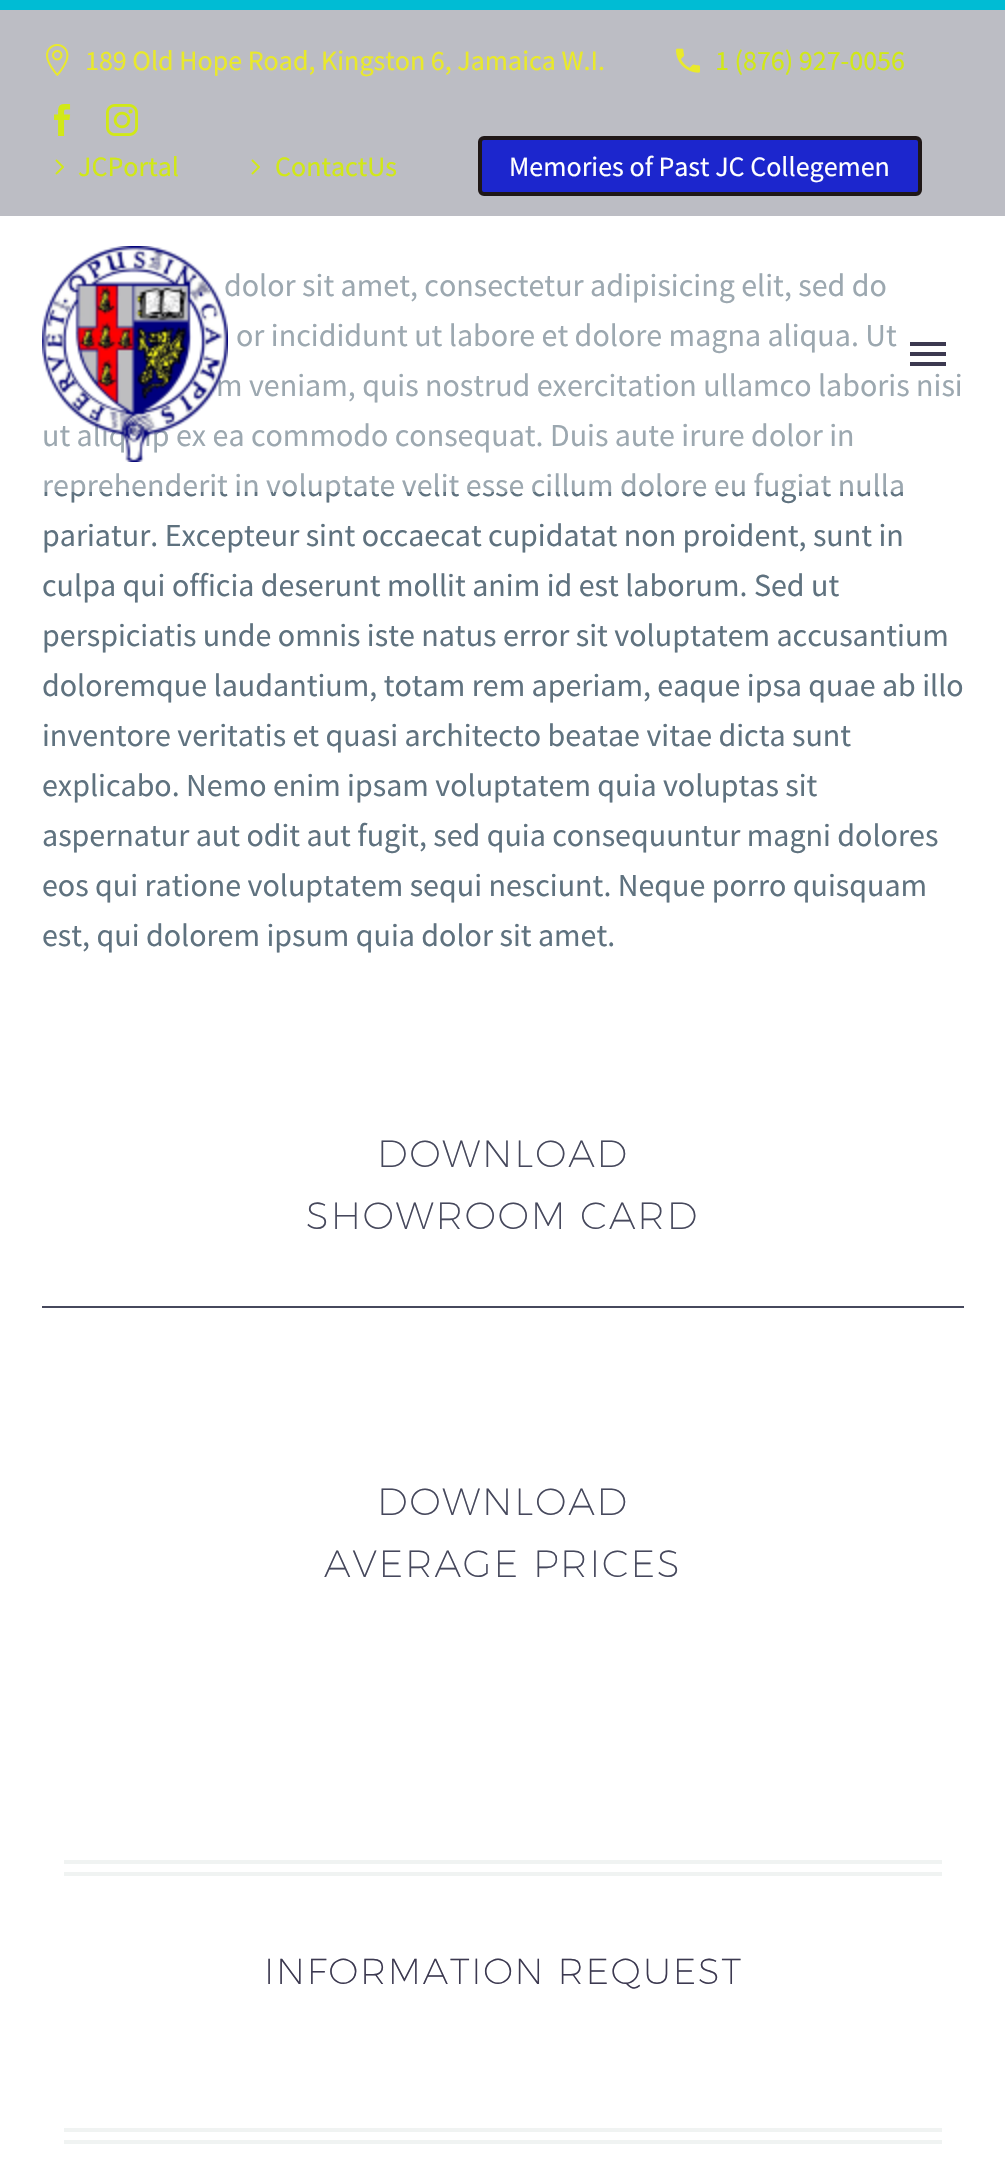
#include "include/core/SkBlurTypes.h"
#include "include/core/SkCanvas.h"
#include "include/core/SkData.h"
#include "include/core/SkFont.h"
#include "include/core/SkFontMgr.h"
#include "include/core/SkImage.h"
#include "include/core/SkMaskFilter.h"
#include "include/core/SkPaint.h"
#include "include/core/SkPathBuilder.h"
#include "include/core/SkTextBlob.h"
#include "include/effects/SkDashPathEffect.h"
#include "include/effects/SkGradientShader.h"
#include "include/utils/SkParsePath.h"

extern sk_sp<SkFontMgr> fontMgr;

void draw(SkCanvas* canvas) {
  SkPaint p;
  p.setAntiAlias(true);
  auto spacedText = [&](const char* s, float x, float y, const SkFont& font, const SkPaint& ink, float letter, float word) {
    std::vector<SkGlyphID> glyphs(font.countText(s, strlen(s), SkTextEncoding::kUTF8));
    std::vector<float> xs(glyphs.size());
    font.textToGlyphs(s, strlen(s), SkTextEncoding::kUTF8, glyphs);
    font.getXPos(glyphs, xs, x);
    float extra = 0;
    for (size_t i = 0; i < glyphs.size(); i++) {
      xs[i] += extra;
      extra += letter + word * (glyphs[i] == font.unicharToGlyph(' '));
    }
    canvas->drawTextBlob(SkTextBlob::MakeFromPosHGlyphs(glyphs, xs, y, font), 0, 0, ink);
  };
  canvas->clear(SK_ColorWHITE);
  p.setColor(SkColorSetRGB(188, 189, 196));
  canvas->drawRect(SkRect::MakeLTRB(0, 10, 1005, 216), p);
  p.setColor(SkColorSetRGB(0, 188, 212));
  canvas->drawRect(SkRect::MakeLTRB(0, 0, 1005, 10), p);
  canvas->drawImageRect(SkImages::DeferredFromEncodedData(SkData::MakeFromFileName("images/1.png")), SkRect::MakeLTRB(46, 44, 69, 76), SkSamplingOptions());
  canvas->drawImageRect(SkImages::DeferredFromEncodedData(SkData::MakeFromFileName("images/2.png")), SkRect::MakeLTRB(676, 48, 700, 73), SkSamplingOptions());
  canvas->drawImageRect(SkImages::DeferredFromEncodedData(SkData::MakeFromFileName("images/3.png")), SkRect::MakeLTRB(54, 104, 71, 136), SkSamplingOptions());
  canvas->drawImageRect(SkImages::DeferredFromEncodedData(SkData::MakeFromFileName("images/4.png")), SkRect::MakeLTRB(106, 104, 138, 136), SkSamplingOptions());
  canvas->drawImageRect(SkImages::DeferredFromEncodedData(SkData::MakeFromFileName("images/5.png")), SkRect::MakeLTRB(55, 159, 64, 175), SkSamplingOptions());
  canvas->drawImageRect(SkImages::DeferredFromEncodedData(SkData::MakeFromFileName("images/5.png")), SkRect::MakeLTRB(251, 159, 260, 175), SkSamplingOptions());
  p.setColor(SkColorSetRGB(28, 38, 205));
  canvas->drawRoundRect(SkRect::MakeLTRB(480, 138, 920, 194), 4, 4, p);
  p.setStyle(SkPaint::kStroke_Style);
  p.setStrokeWidth(4);
  p.setColor(SkColorSetRGB(31, 23, 23));
  canvas->drawRoundRect(SkRect::MakeLTRB(480, 138, 920, 194), 4, 4, p);
  p.setStyle(SkPaint::kFill_Style);
  p.setColor(SkColorSetRGB(70, 72, 92));
  canvas->drawRect(SkRect::MakeLTRB(42, 1306, 964, 1308), p);
  p.setColor(SkColorSetRGB(240, 243, 242));
  canvas->drawRect(SkRect::MakeLTRB(64, 1860, 942, 1864), p);
  canvas->drawRect(SkRect::MakeLTRB(64, 1872, 942, 1876), p);
  canvas->drawRect(SkRect::MakeLTRB(64, 2128, 942, 2132), p);
  canvas->drawRect(SkRect::MakeLTRB(64, 2140, 942, 2144), p);
  SkFont font1(fontMgr->matchFamilyStyle("Source Sans Pro", SkFontStyle::Normal()), 28);
  font1.setSubpixel(true);
  p.setColor(SkColorSetRGB(233, 233, 43));
  canvas->drawString("189 Old Hope Road, Kingston 6, Jamaica W.I.", 85, 70, font1, p);
  p.setColor(SkColorSetRGB(209, 232, 23));
  canvas->drawString("1 (876) 927-0056", 715, 70, font1, p);
  canvas->drawString("JCPortal", 78, 176, font1, p);
  canvas->drawString("ContactUs", 275, 176, font1, p);
  p.setColor(SK_ColorWHITE);
  canvas->drawString("Memories of Past JC Collegemen", 509, 176, font1, p);
  SkFont font2(fontMgr->matchFamilyStyle("Source Sans Pro", SkFontStyle::Normal()), 32);
  font2.setSubpixel(true);
  p.setColor(SkColorSetRGB(95, 114, 127));
  canvas->drawString("dolor sit amet, consectetur adipisicing elit, sed do", 224, 296, font2, p);
  canvas->drawString("or incididunt ut labore et dolore magna aliqua. Ut", 236, 346, font2, p);
  canvas->drawString("m veniam, quis nostrud exercitation ullamco laboris nisi", 216, 396, font2, p);
  canvas->drawString("ut aliquip ex ea commodo consequat. Duis aute irure dolor in", 42, 446, font2, p);
  canvas->drawString("reprehenderit in voluptate velit esse cillum dolore eu fugiat nulla", 42, 496, font2, p);
  p.setColor(SkColorSetARGB(97, 255, 255, 255));
  canvas->drawRect(SkRect::MakeLTRB(44, 273, 961, 492), p);
  p.setColor(SkColorSetRGB(60, 57, 80));
  canvas->drawRect(SkRect::MakeLTRB(910, 362, 946, 366), p);
  canvas->drawRect(SkRect::MakeLTRB(910, 352, 946, 356), p);
  canvas->drawRect(SkRect::MakeLTRB(910, 342, 946, 346), p);
  canvas->drawImageRect(SkImages::DeferredFromEncodedData(SkData::MakeFromFileName("images/6.png")), SkRect::MakeLTRB(42, 246, 228, 462), SkSamplingOptions());
  p.setColor(SkColorSetRGB(95, 114, 127));
  canvas->drawString("pariatur. Excepteur sint occaecat cupidatat non proident, sunt in", 42, 546, font2, p);
  canvas->drawString("culpa qui officia deserunt mollit anim id est laborum. Sed ut", 42, 596, font2, p);
  canvas->drawString("perspiciatis unde omnis iste natus error sit voluptatem accusantium", 42, 646, font2, p);
  canvas->drawString("doloremque laudantium, totam rem aperiam, eaque ipsa quae ab illo", 42, 696, font2, p);
  canvas->drawString("inventore veritatis et quasi architecto beatae vitae dicta sunt", 42, 746, font2, p);
  canvas->drawString("explicabo. Nemo enim ipsam voluptatem quia voluptas sit", 42, 796, font2, p);
  canvas->drawString("aspernatur aut odit aut fugit, sed quia consequuntur magni dolores", 42, 846, font2, p);
  canvas->drawString("eos qui ratione voluptatem sequi nesciunt. Neque porro quisquam", 42, 896, font2, p);
  canvas->drawString("est, qui dolorem ipsum quia dolor sit amet.", 42, 946, font2, p);
  SkFont font3(fontMgr->matchFamilyStyle("Montserrat", SkFontStyle(200, SkFontStyle::kNormal_Width, SkFontStyle::kUpright_Slant)), 38);
  font3.setSubpixel(true);
  p.setColor(SkColorSetRGB(70, 72, 92));
  spacedText("DOWNLOAD", 377, 1167, font3, p, 1.9f, 0);
  spacedText("SHOWROOM CARD", 306, 1229, font3, p, 1.9f, 0);
  spacedText("DOWNLOAD", 377, 1515, font3, p, 1.9f, 0);
  spacedText("AVERAGE PRICES", 324, 1577, font3, p, 1.9f, 0);
  SkFont font4(fontMgr->matchFamilyStyle("Montserrat", SkFontStyle(200, SkFontStyle::kNormal_Width, SkFontStyle::kUpright_Slant)), 36.25f);
  font4.setSubpixel(true);
  p.setColor(SkColorSetRGB(60, 57, 80));
  spacedText("INFORMATION REQUEST", 264, 1984, font4, p, 1.8f, 0);
}
